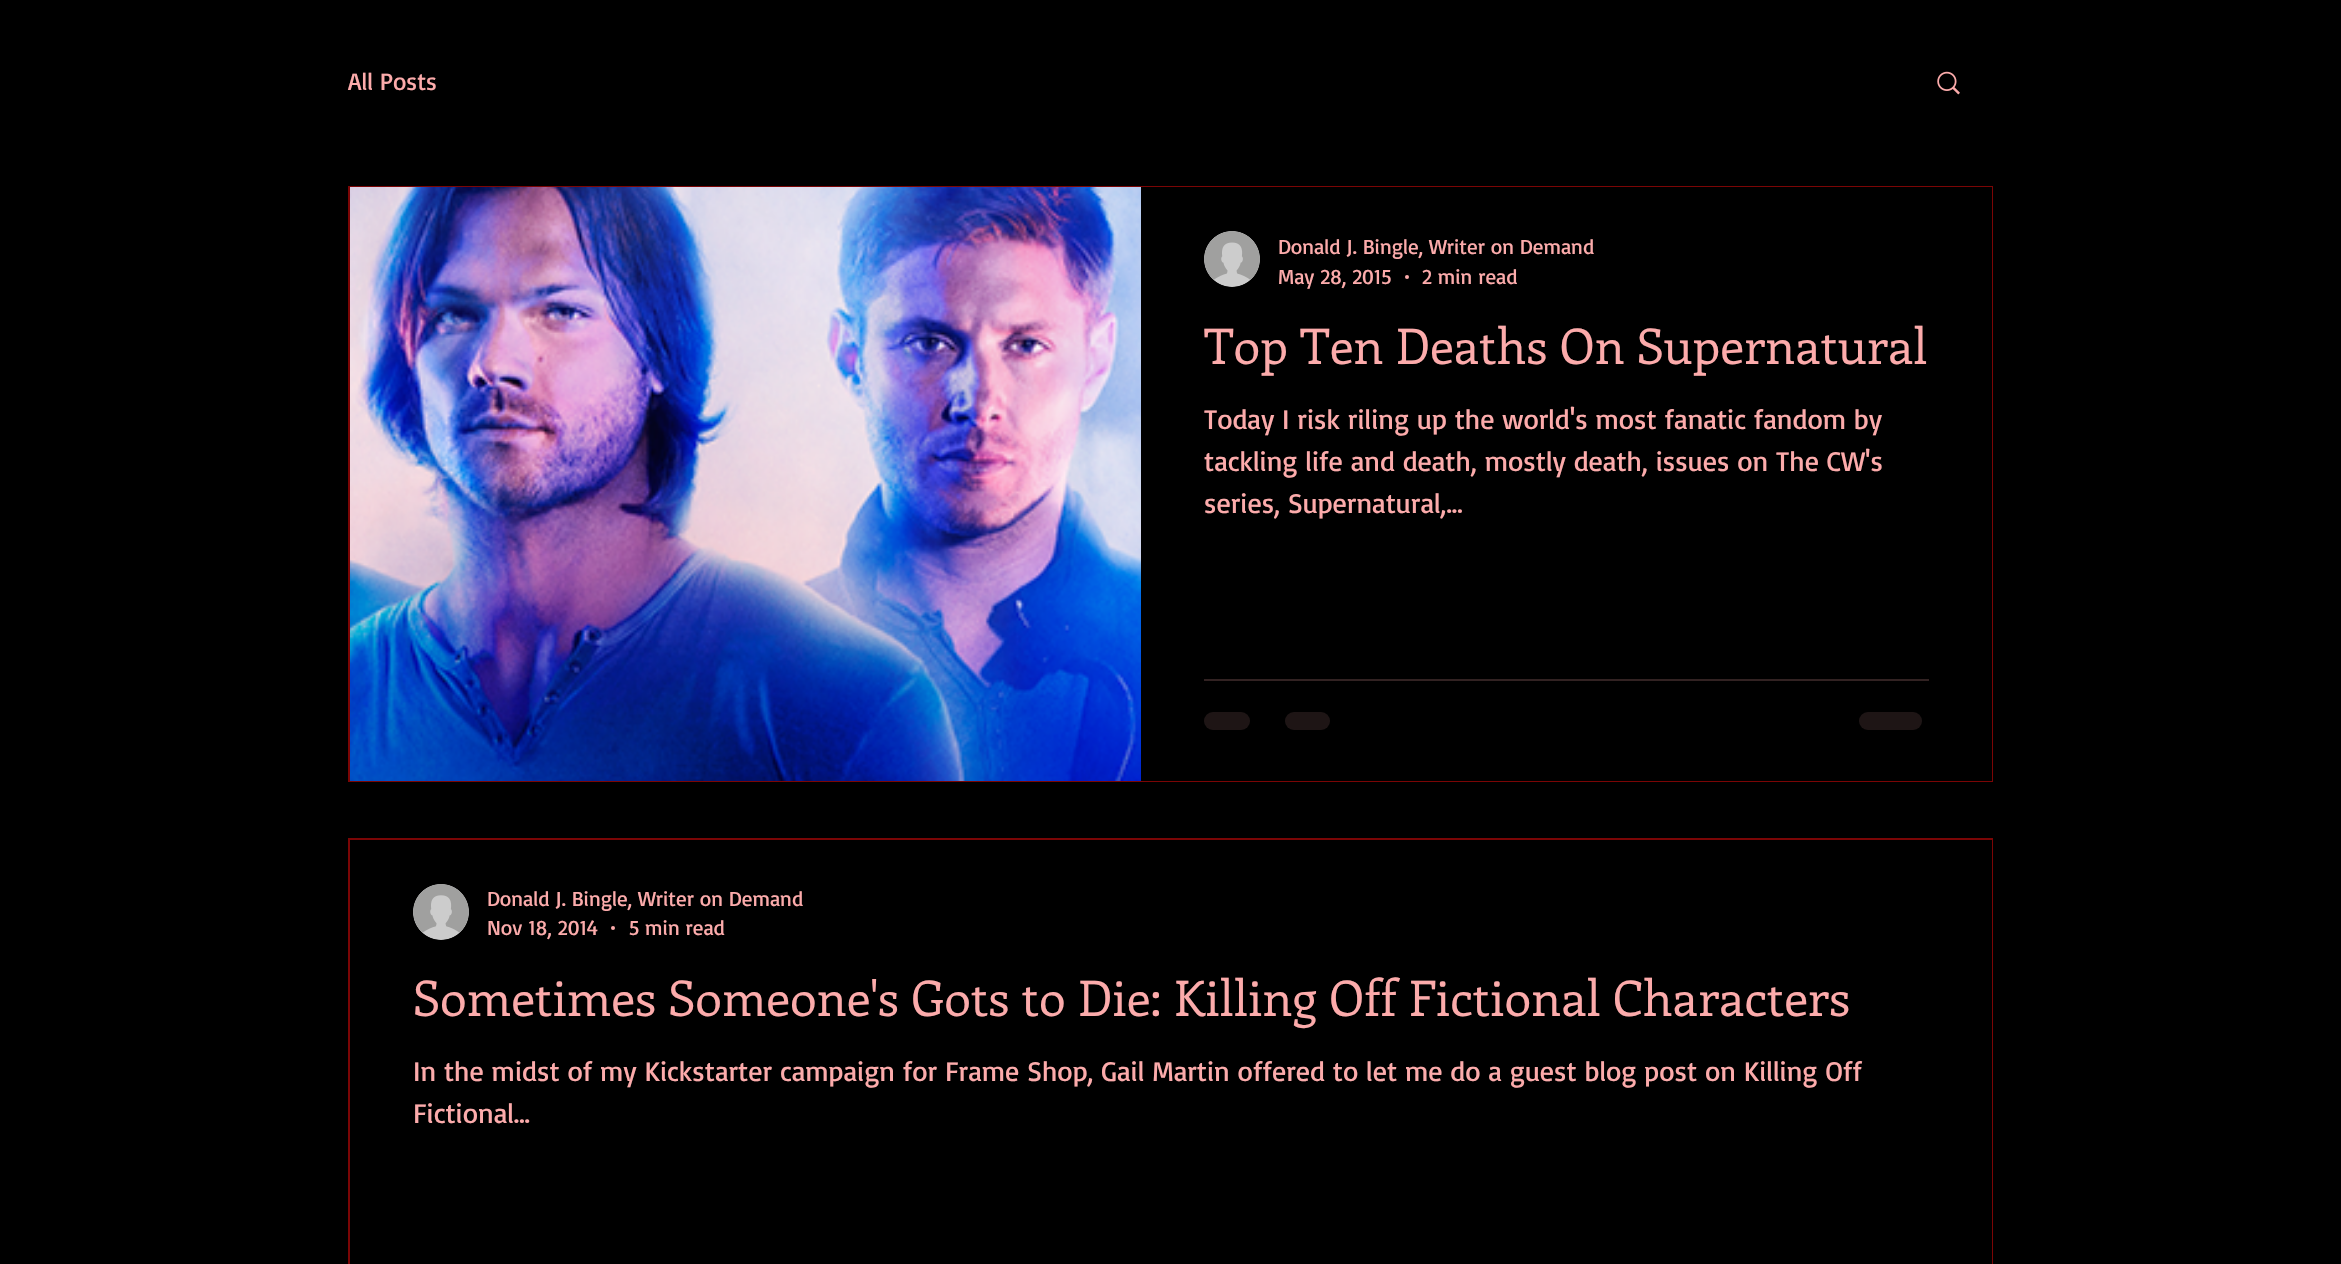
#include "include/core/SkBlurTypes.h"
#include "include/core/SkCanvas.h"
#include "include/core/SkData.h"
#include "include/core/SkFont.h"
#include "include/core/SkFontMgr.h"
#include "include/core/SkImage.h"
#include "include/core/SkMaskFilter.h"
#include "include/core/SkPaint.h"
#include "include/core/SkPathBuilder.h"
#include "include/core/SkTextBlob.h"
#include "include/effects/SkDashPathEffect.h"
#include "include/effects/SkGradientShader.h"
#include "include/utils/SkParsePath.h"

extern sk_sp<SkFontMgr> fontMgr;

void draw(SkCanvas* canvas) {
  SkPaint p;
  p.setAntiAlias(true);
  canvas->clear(SK_ColorBLACK);
  canvas->drawImageRect(SkImages::DeferredFromEncodedData(SkData::MakeFromFileName("images/1.png")), SkRect::MakeLTRB(1937, 71, 1960, 95), SkSamplingOptions());
  p.setStyle(SkPaint::kStroke_Style);
  p.setStrokeWidth(2);
  p.setColor(SkColorSetRGB(123, 5, 5));
  canvas->drawRect(SkRect::MakeLTRB(349, 187, 1992, 781), p);
  canvas->drawImageRect(SkImages::DeferredFromEncodedData(SkData::MakeFromFileName("images/2.png")), SkRect::MakeLTRB(350, 187, 1141, 781), SkSamplingOptions());
  p.setStyle(SkPaint::kFill_Style);
  p.setColor(SK_ColorBLACK);
  canvas->drawRect(SkRect::MakeLTRB(1141, 187, 1992, 781), p);
  canvas->drawImageRect(SkImages::DeferredFromEncodedData(SkData::MakeFromFileName("images/3.png")), SkRect::MakeLTRB(1204, 231, 1260, 287), SkSamplingOptions());
  p.setColor(SkColorSetRGB(252, 171, 171));
  canvas->drawCircle(1407, 277, 2, p);
  p.setColor(SkColorSetRGB(50, 34, 34));
  canvas->drawRect(SkRect::MakeLTRB(1204, 679, 1929, 681), p);
  p.setColor(SkColorSetRGB(30, 21, 21));
  canvas->drawRoundRect(SkRect::MakeLTRB(1204, 712, 1250, 730), 9, 9, p);
  canvas->drawRoundRect(SkRect::MakeLTRB(1285, 712, 1330, 730), 9, 9, p);
  canvas->drawRoundRect(SkRect::MakeLTRB(1859, 712, 1922, 730), 9, 9, p);
  p.setStyle(SkPaint::kStroke_Style);
  p.setColor(SkColorSetRGB(123, 5, 5));
  canvas->drawRect(SkRect::MakeLTRB(349, 839, 1992, 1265), p);
  p.setStyle(SkPaint::kFill_Style);
  p.setColor(SK_ColorBLACK);
  canvas->drawRect(SkRect::MakeLTRB(1991, 840, 1992, 1264), p);
  canvas->drawImageRect(SkImages::DeferredFromEncodedData(SkData::MakeFromFileName("images/4.png")), SkRect::MakeLTRB(413, 884, 469, 940), SkSamplingOptions());
  p.setColor(SkColorSetRGB(252, 171, 171));
  canvas->drawCircle(613, 928, 2, p);
  SkFont font1(fontMgr->matchFamilyStyle("Basic", SkFontStyle::Normal()), 24.5f);
  font1.setSubpixel(true);
  canvas->drawString("All Posts", 348, 90, font1, p);
  SkFont font2(fontMgr->matchFamilyStyle("Basic", SkFontStyle::Normal()), 21);
  font2.setSubpixel(true);
  canvas->drawString("Donald J. Bingle, Writer on Demand", 1278, 254, font2, p);
  canvas->drawString("May 28, 2015", 1278, 284, font2, p);
  canvas->drawString("2 min read", 1422, 284, font2, p);
  SkFont font3(fontMgr->matchFamilyStyle("Enriqueta", SkFontStyle::Normal()), 49);
  font3.setSubpixel(true);
  canvas->drawString("Top Ten Deaths On Supernatural", 1204, 364, font3, p);
  SkFont font4(fontMgr->matchFamilyStyle("Basic", SkFontStyle::Normal()), 28);
  font4.setSubpixel(true);
  canvas->drawString("Today I risk riling up the world's most fanatic fandom by", 1204, 429, font4, p);
  canvas->drawString("tackling life and death, mostly death, issues on The CW's", 1204, 471, font4, p);
  canvas->drawString("series, Supernatural,...", 1204, 513, font4, p);
  canvas->drawString("Donald J. Bingle, Writer on Demand", 487, 906, font2, p);
  canvas->drawString("Nov 18, 2014", 487, 935, font2, p);
  canvas->drawString("5 min read", 629, 935, font2, p);
  canvas->drawString("Sometimes Someone's Gots to Die: Killing Off Fictional Characters", 413, 1016, font3, p);
  canvas->drawString("In the midst of my Kickstarter campaign for Frame Shop, Gail Martin offered to let me do a guest blog post on Killing Off", 413, 1081, font4, p);
  canvas->drawString("Fictional...", 413, 1123, font4, p);
}
